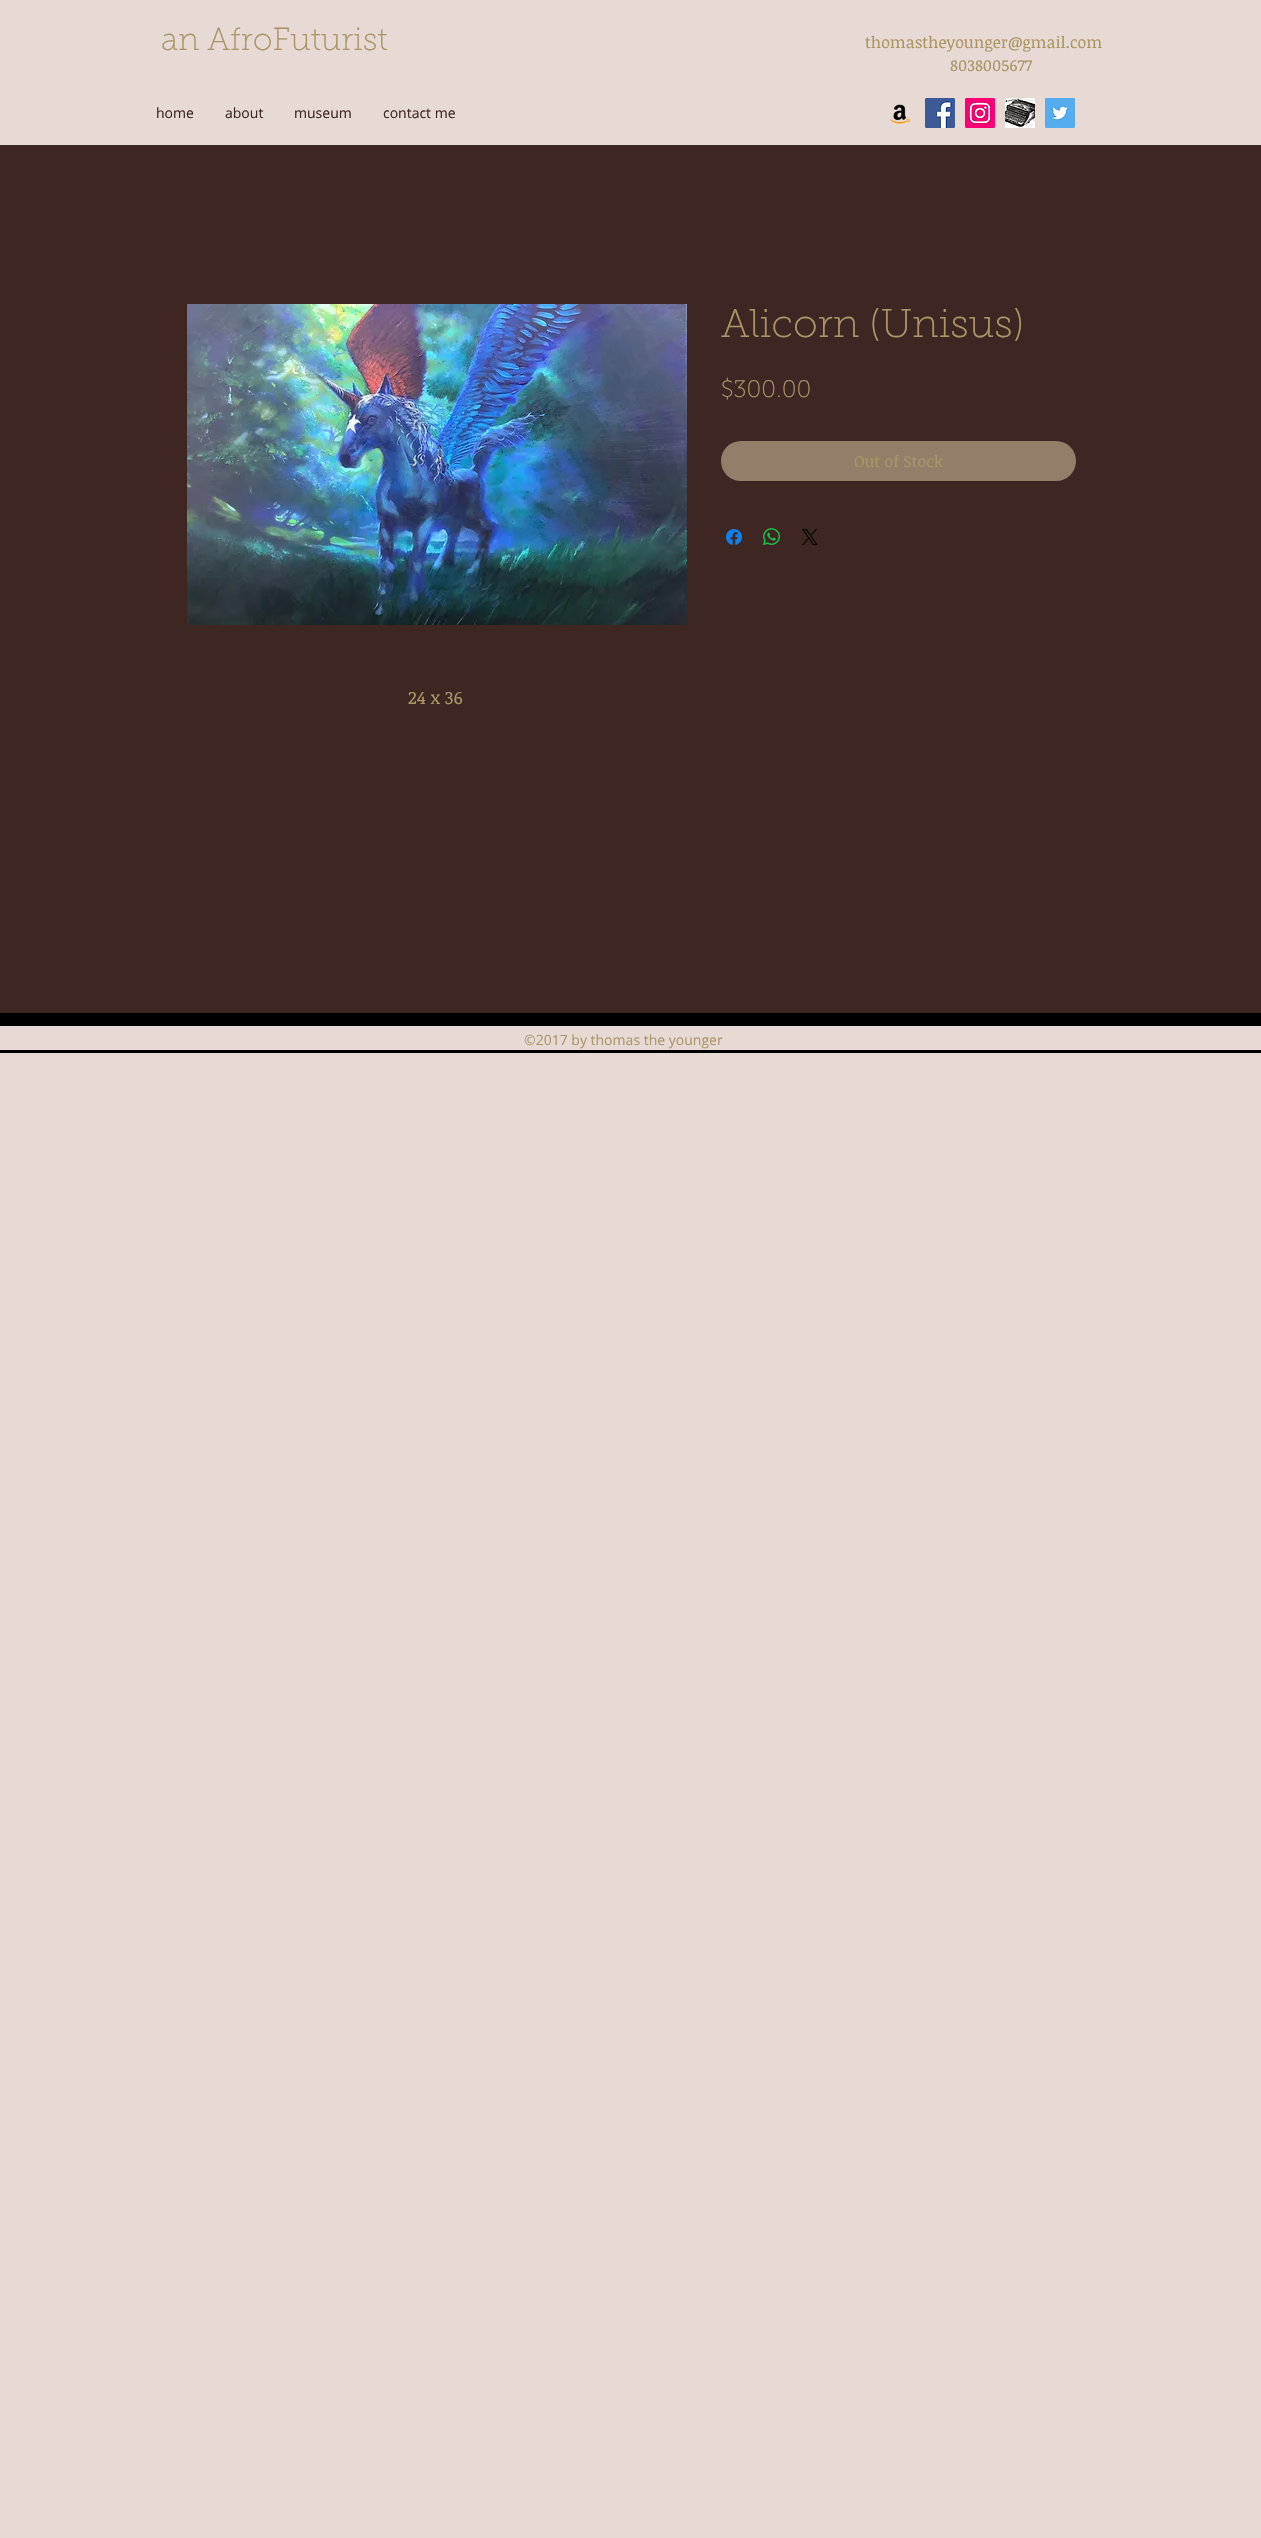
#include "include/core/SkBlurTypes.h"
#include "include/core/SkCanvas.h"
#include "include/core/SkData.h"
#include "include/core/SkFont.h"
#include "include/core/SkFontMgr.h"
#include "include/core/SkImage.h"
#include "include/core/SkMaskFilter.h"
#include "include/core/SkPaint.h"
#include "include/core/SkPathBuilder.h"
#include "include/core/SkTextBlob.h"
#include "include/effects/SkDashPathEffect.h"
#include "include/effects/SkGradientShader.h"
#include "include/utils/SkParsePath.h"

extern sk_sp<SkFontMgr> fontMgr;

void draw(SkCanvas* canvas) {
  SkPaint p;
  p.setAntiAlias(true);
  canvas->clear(SkColorSetRGB(231, 218, 213));
  canvas->drawImageRect(SkImages::DeferredFromEncodedData(SkData::MakeFromFileName("images/1.png")), SkRect::MakeLTRB(889, 104, 910, 124), SkSamplingOptions());
  canvas->drawImageRect(SkImages::DeferredFromEncodedData(SkData::MakeFromFileName("images/2.png")), SkRect::MakeLTRB(925, 98, 955, 128), SkSamplingOptions());
  canvas->drawImageRect(SkImages::DeferredFromEncodedData(SkData::MakeFromFileName("images/3.png")), SkRect::MakeLTRB(965, 98, 995, 128), SkSamplingOptions());
  canvas->drawImageRect(SkImages::DeferredFromEncodedData(SkData::MakeFromFileName("images/4.png")), SkRect::MakeLTRB(1005, 98, 1035, 128), SkSamplingOptions());
  canvas->drawImageRect(SkImages::DeferredFromEncodedData(SkData::MakeFromFileName("images/5.png")), SkRect::MakeLTRB(1045, 98, 1075, 128), SkSamplingOptions());
  p.setColor(SkColorSetRGB(62, 39, 35));
  canvas->drawRect(SkRect::MakeLTRB(0, 145, 1261, 1013), p);
  p.setColor(SkColorSetRGB(146, 126, 105));
  canvas->drawRoundRect(SkRect::MakeLTRB(721, 441, 1076, 481), 20, 20, p);
  canvas->drawImageRect(SkImages::DeferredFromEncodedData(SkData::MakeFromFileName("images/6.png")), SkRect::MakeLTRB(726, 529, 742, 545), SkSamplingOptions());
  canvas->drawImageRect(SkImages::DeferredFromEncodedData(SkData::MakeFromFileName("images/7.png")), SkRect::MakeLTRB(763, 528, 780, 545), SkSamplingOptions());
  canvas->drawImageRect(SkImages::DeferredFromEncodedData(SkData::MakeFromFileName("images/8.png")), SkRect::MakeLTRB(802, 529, 818, 545), SkSamplingOptions());
  canvas->drawImageRect(SkImages::DeferredFromEncodedData(SkData::MakeFromFileName("images/9.png")), SkRect::MakeLTRB(187, 304, 687, 625), SkSamplingOptions());
  p.setColor(SK_ColorBLACK);
  canvas->drawRect(SkRect::MakeLTRB(0, 1013, 1261, 1053), p);
  p.setColor(SkColorSetRGB(231, 218, 213));
  canvas->drawRect(SkRect::MakeLTRB(0, 1026, 1261, 1050), p);
  SkFont font1(fontMgr->matchFamilyStyle("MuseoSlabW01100", SkFontStyle(100, SkFontStyle::kNormal_Width, SkFontStyle::kUpright_Slant)), 32);
  font1.setSubpixel(true);
  p.setColor(SkColorSetRGB(171, 149, 103));
  canvas->drawString("an AfroFuturist", 161, 50, font1, p);
  SkFont font2(fontMgr->matchFamilyStyle("Noticia Text", SkFontStyle::Normal()), 16);
  font2.setSubpixel(true);
  p.setColor(SkColorSetRGB(171, 148, 96));
  canvas->drawString("thomastheyounger@gmail.com", 865, 48, font2, p);
  p.setColor(SkColorSetRGB(171, 149, 103));
  canvas->drawString("8038005677", 950, 71, font2, p);
  SkFont font3(fontMgr->matchFamilyStyle("Open Sans", SkFontStyle::Normal()), 14);
  font3.setSubpixel(true);
  p.setColor(SkColorSetRGB(62, 39, 35));
  canvas->drawString("home", 156, 118, font3, p);
  canvas->drawString("about", 225, 118, font3, p);
  canvas->drawString("museum", 294, 118, font3, p);
  canvas->drawString("contact me", 383, 118, font3, p);
  SkFont font4(fontMgr->matchFamilyStyle("MuseoSlabW01100", SkFontStyle(100, SkFontStyle::kNormal_Width, SkFontStyle::kUpright_Slant)), 40);
  font4.setSubpixel(true);
  p.setColor(SkColorSetRGB(171, 149, 103));
  canvas->drawString("Alicorn (Unisus)", 721, 337, font4, p);
  SkFont font5(fontMgr->matchFamilyStyle("MuseoSlabW01100", SkFontStyle(100, SkFontStyle::kNormal_Width, SkFontStyle::kUpright_Slant)), 24);
  font5.setSubpixel(true);
  canvas->drawString("$300.00", 721, 397, font5, p);
  canvas->drawString("Out of Stock", 854, 467, font2, p);
  SkFont font6(fontMgr->matchFamilyStyle("Noticia Text", SkFontStyle::Normal()), 18);
  font6.setSubpixel(true);
  canvas->drawString("24 x 36", 408, 704, font6, p);
  canvas->drawString("©2017 by thomas the younger", 524, 1045, font3, p);
}
